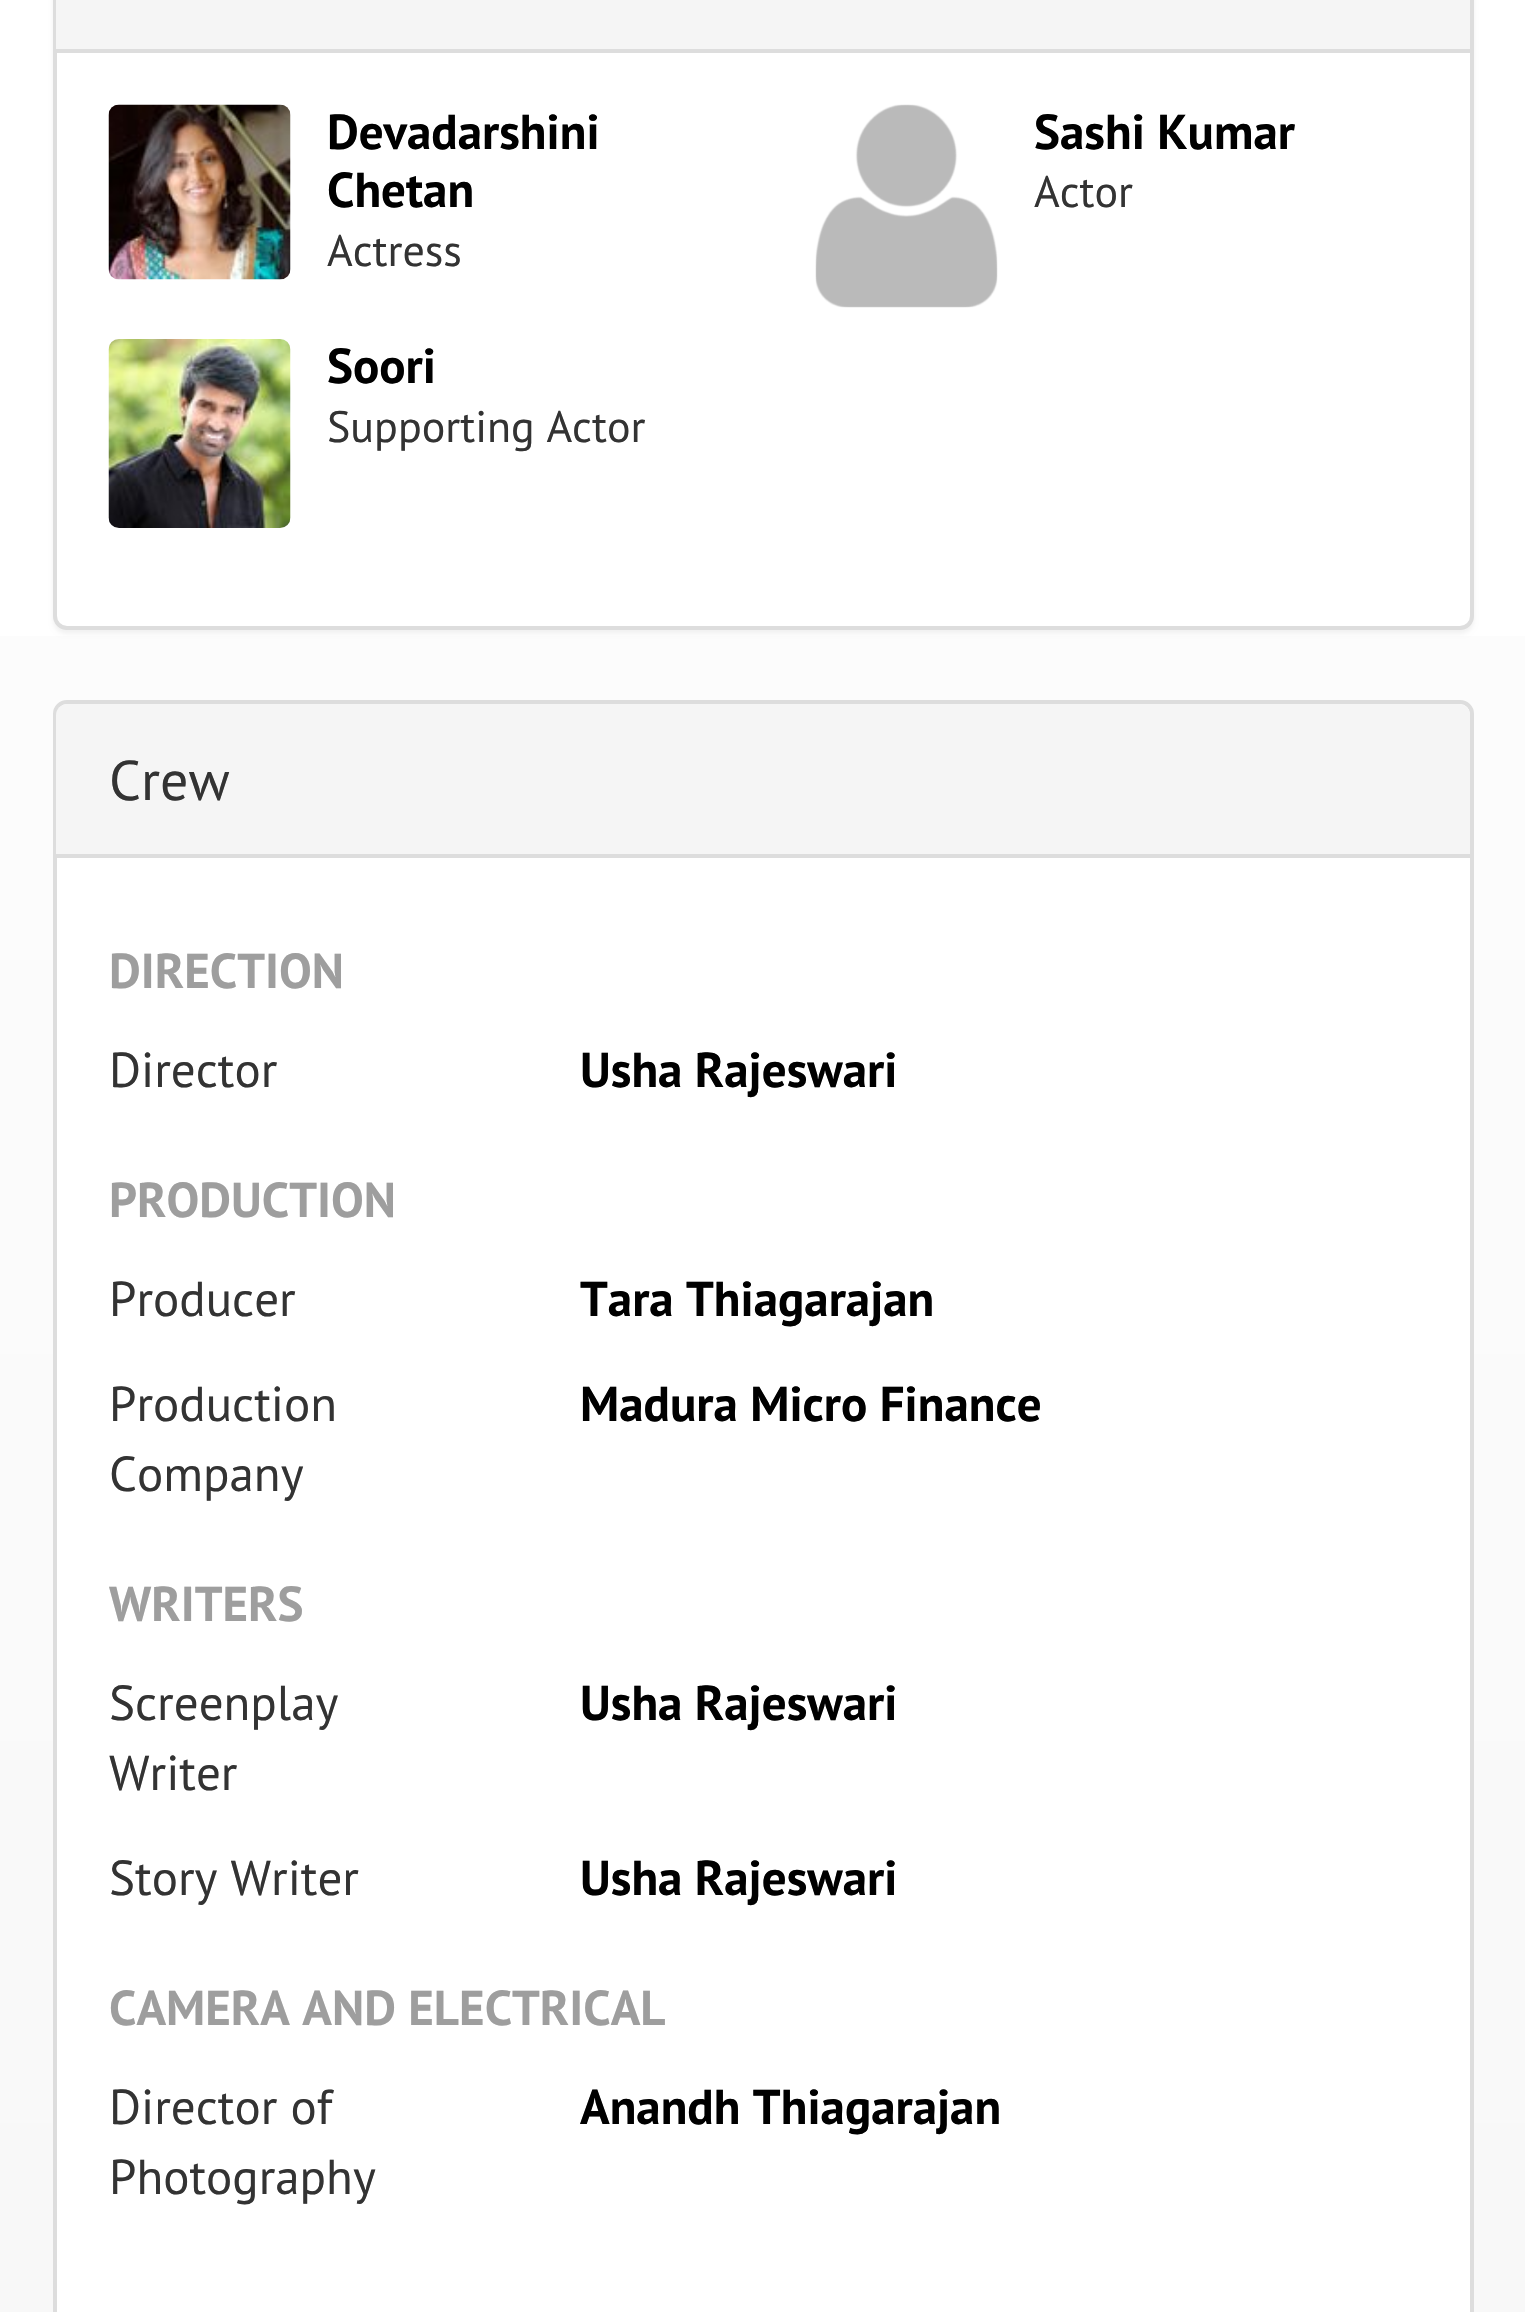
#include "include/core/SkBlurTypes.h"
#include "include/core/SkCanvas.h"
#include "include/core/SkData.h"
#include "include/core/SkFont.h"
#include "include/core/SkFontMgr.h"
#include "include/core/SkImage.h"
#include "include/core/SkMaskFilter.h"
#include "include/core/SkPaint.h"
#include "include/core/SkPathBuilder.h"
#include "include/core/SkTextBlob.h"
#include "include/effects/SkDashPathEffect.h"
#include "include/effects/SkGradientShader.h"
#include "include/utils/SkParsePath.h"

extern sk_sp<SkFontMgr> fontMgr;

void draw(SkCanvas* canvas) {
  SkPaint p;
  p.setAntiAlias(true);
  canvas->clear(SK_ColorWHITE);
  {
    const SkColor colors[] = {SK_ColorWHITE, SkColorSetRGB(252, 252, 252), SkColorSetRGB(250, 250, 250), SkColorSetRGB(248, 248, 248)};
    const float stops[] = {0, 0.33f, 0.67f, 1};
    const SkPoint ends[] = {{763, 0}, {763, 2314}};
    p.setShader(SkGradientShader::MakeLinear(ends, colors, stops, 4, SkTileMode::kClamp));
    p.setAlpha(255);
  }
  canvas->drawRect(SkRect::MakeLTRB(0, 636, 1525, 2312), p);
  p.setShader(nullptr);
  p.setColor(SkColorSetARGB(13, 0, 0, 0));
  p.setMaskFilter(SkMaskFilter::MakeBlur(kNormal_SkBlurStyle, 2));
  canvas->drawRoundRect(SkRect::MakeLTRB(53, -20, 1474, 634), 14, 14, p);
  p.setMaskFilter(nullptr);
  p.setColor(SK_ColorWHITE);
  canvas->drawRoundRect(SkRect::MakeLTRB(55, -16, 1472, 628), 12, 12, p);
  p.setStyle(SkPaint::kStroke_Style);
  p.setStrokeWidth(4);
  p.setColor(SkColorSetRGB(221, 221, 221));
  canvas->drawRoundRect(SkRect::MakeLTRB(55, -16, 1472, 628), 12, 12, p);
  p.setStyle(SkPaint::kFill_Style);
  p.setColor(SkColorSetRGB(245, 245, 245));
  canvas->drawRect(SkRect::MakeLTRB(56, 0, 1470, 49), p);
  p.setColor(SkColorSetRGB(221, 221, 221));
  canvas->drawRect(SkRect::MakeLTRB(56, 49, 1470, 53), p);
  canvas->drawImageRect(SkImages::DeferredFromEncodedData(SkData::MakeFromFileName("images/1.png")), SkRect::MakeLTRB(108, 104, 291, 280), SkSamplingOptions());
  canvas->drawImageRect(SkImages::DeferredFromEncodedData(SkData::MakeFromFileName("images/2.png")), SkRect::MakeLTRB(815, 104, 998, 308), SkSamplingOptions());
  canvas->drawImageRect(SkImages::DeferredFromEncodedData(SkData::MakeFromFileName("images/3.png")), SkRect::MakeLTRB(108, 339, 291, 528), SkSamplingOptions());
  p.setColor(SK_ColorWHITE);
  canvas->drawRoundRect(SkRect::MakeLTRB(55, 702, 1472, 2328), 12, 12, p);
  p.setStyle(SkPaint::kStroke_Style);
  p.setColor(SkColorSetRGB(221, 221, 221));
  canvas->drawRoundRect(SkRect::MakeLTRB(55, 702, 1472, 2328), 12, 12, p);
  p.setStyle(SkPaint::kFill_Style);
  p.setColor(SkColorSetRGB(245, 245, 245));
  canvas->drawPath(SkPathBuilder().moveTo(67, 704).lineTo(1459, 704).cubicTo(1465, 704, 1470, 709, 1470, 715).lineTo(1470, 858).lineTo(56, 858).lineTo(56, 715).cubicTo(56, 709, 61, 704, 67, 704).close().detach(), p);
  p.setColor(SkColorSetRGB(221, 221, 221));
  canvas->drawRect(SkRect::MakeLTRB(56, 854, 1470, 858), p);
  SkFont font1(fontMgr->matchFamilyStyle("PT Sans", SkFontStyle::Bold()), 49);
  font1.setSubpixel(true);
  p.setColor(SK_ColorBLACK);
  canvas->drawString("Devadarshini", 327, 149, font1, p);
  canvas->drawString("Chetan", 327, 207, font1, p);
  SkFont font2(fontMgr->matchFamilyStyle("PT Sans", SkFontStyle::Normal()), 44);
  font2.setSubpixel(true);
  p.setColor(SkColorSetRGB(51, 51, 51));
  canvas->drawString("Actress", 327, 266, font2, p);
  p.setColor(SK_ColorBLACK);
  canvas->drawString("Sashi Kumar", 1034, 149, font1, p);
  p.setColor(SkColorSetRGB(51, 51, 51));
  canvas->drawString("Actor", 1034, 207, font2, p);
  p.setColor(SK_ColorBLACK);
  canvas->drawString("Soori", 327, 383, font1, p);
  p.setColor(SkColorSetRGB(51, 51, 51));
  canvas->drawString("Supporting Actor", 327, 442, font2, p);
  SkFont font3(fontMgr->matchFamilyStyle("PT Sans", SkFontStyle::Normal()), 56);
  font3.setSubpixel(true);
  canvas->drawString("Crew", 109, 800, font3, p);
  p.setColor(SkColorSetRGB(158, 158, 158));
  canvas->drawString("DIRECTION", 109, 988, font1, p);
  SkFont font4(fontMgr->matchFamilyStyle("PT Sans", SkFontStyle::Normal()), 49);
  font4.setSubpixel(true);
  p.setColor(SkColorSetRGB(51, 51, 51));
  canvas->drawString("Director", 109, 1087, font4, p);
  p.setColor(SK_ColorBLACK);
  canvas->drawString("Usha Rajeswari", 580, 1087, font1, p);
  p.setColor(SkColorSetRGB(158, 158, 158));
  canvas->drawString("PRODUCTION", 109, 1217, font1, p);
  p.setColor(SkColorSetRGB(51, 51, 51));
  canvas->drawString("Producer", 109, 1316, font4, p);
  p.setColor(SK_ColorBLACK);
  canvas->drawString("Tara Thiagarajan", 580, 1316, font1, p);
  p.setColor(SkColorSetRGB(51, 51, 51));
  canvas->drawString("Production", 109, 1421, font4, p);
  canvas->drawString("Company", 109, 1491, font4, p);
  p.setColor(SK_ColorBLACK);
  canvas->drawString("Madura Micro Finance", 580, 1421, font1, p);
  p.setColor(SkColorSetRGB(158, 158, 158));
  canvas->drawString("WRITERS", 109, 1621, font1, p);
  p.setColor(SkColorSetRGB(51, 51, 51));
  canvas->drawString("Screenplay", 109, 1720, font4, p);
  canvas->drawString("Writer", 109, 1790, font4, p);
  p.setColor(SK_ColorBLACK);
  canvas->drawString("Usha Rajeswari", 580, 1720, font1, p);
  p.setColor(SkColorSetRGB(51, 51, 51));
  canvas->drawString("Story Writer", 109, 1895, font4, p);
  p.setColor(SK_ColorBLACK);
  canvas->drawString("Usha Rajeswari", 580, 1895, font1, p);
  p.setColor(SkColorSetRGB(158, 158, 158));
  canvas->drawString("CAMERA AND ELECTRICAL", 109, 2025, font1, p);
  p.setColor(SkColorSetRGB(51, 51, 51));
  canvas->drawString("Director of", 109, 2124, font4, p);
  canvas->drawString("Photography", 109, 2194, font4, p);
  p.setColor(SK_ColorBLACK);
  canvas->drawString("Anandh Thiagarajan", 580, 2124, font1, p);
}
